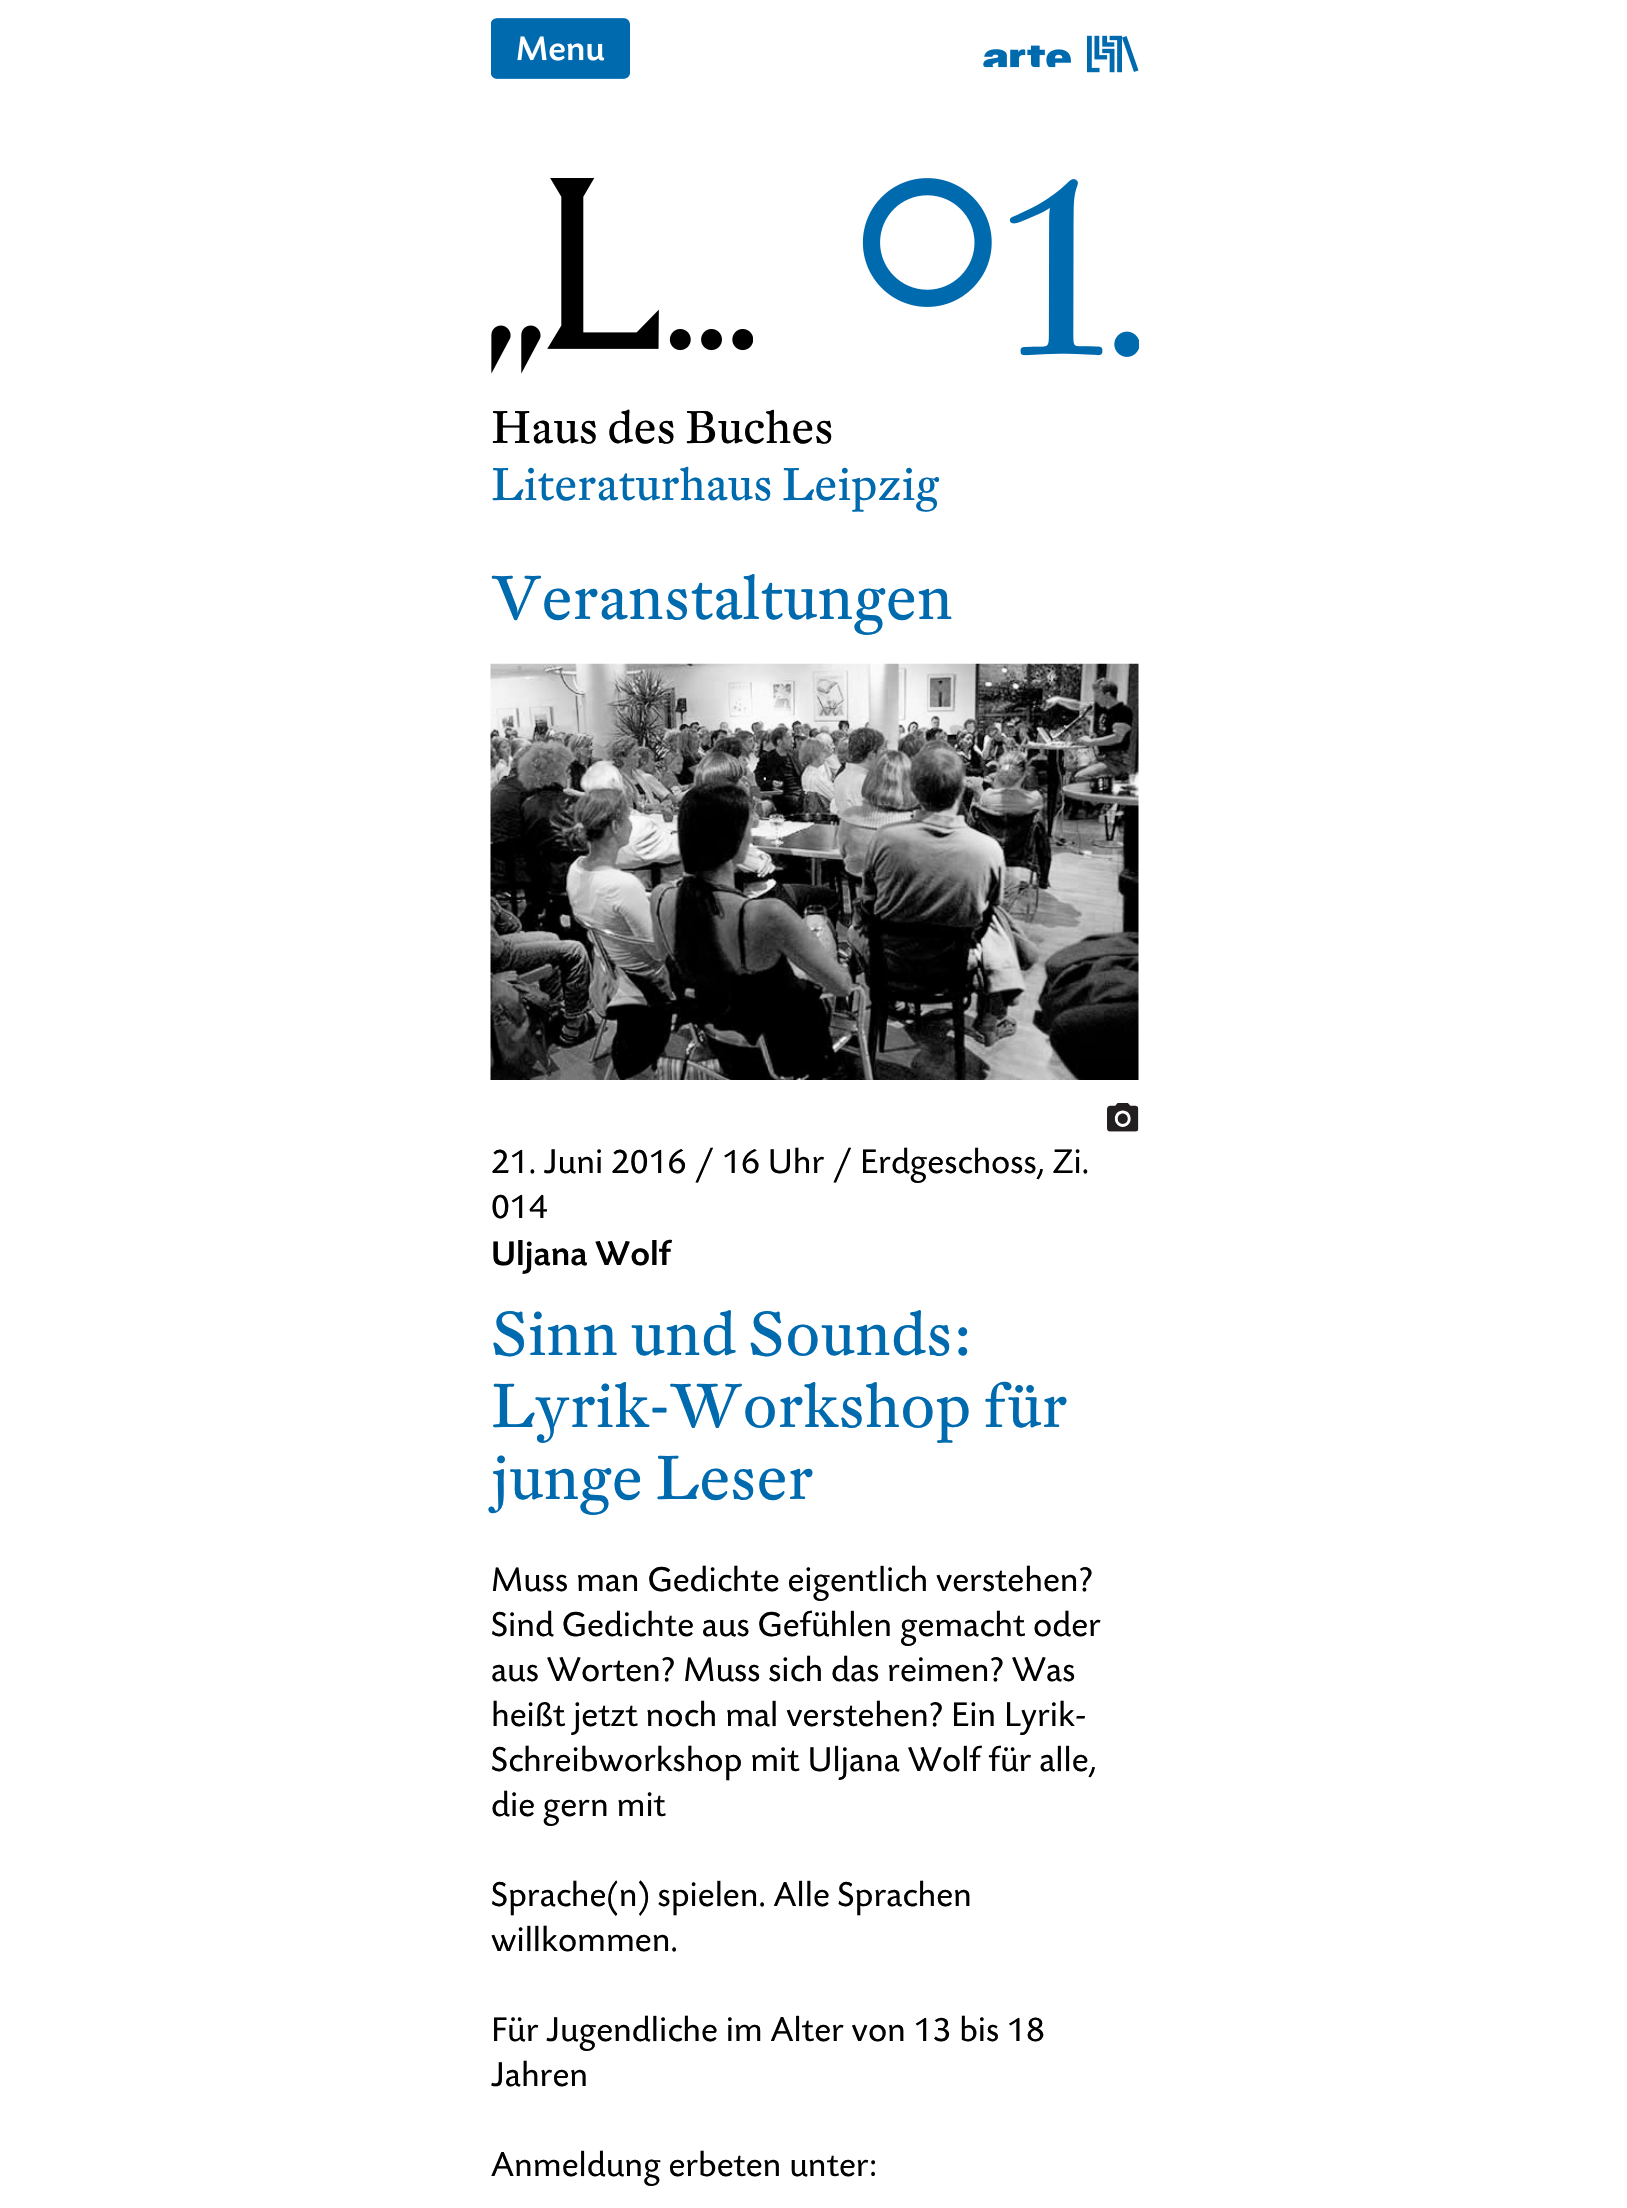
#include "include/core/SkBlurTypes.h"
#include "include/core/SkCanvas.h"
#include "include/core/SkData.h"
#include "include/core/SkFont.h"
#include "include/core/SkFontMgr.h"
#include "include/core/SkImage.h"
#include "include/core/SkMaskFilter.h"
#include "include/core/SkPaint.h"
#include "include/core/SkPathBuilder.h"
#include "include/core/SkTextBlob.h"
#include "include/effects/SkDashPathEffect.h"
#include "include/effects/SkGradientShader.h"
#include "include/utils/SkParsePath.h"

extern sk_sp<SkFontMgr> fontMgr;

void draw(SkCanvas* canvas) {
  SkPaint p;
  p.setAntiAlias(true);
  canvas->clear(SK_ColorWHITE);
  canvas->drawImageRect(SkImages::DeferredFromEncodedData(SkData::MakeFromFileName("images/1.png")), SkRect::MakeLTRB(491, 18, 630, 79), SkSamplingOptions());
  canvas->drawImageRect(SkImages::DeferredFromEncodedData(SkData::MakeFromFileName("images/2.png")), SkRect::MakeLTRB(983, 45, 1071, 68), SkSamplingOptions());
  canvas->drawImageRect(SkImages::DeferredFromEncodedData(SkData::MakeFromFileName("images/3.png")), SkRect::MakeLTRB(1087, 35, 1139, 73), SkSamplingOptions());
  canvas->drawImageRect(SkImages::DeferredFromEncodedData(SkData::MakeFromFileName("images/4.png")), SkRect::MakeLTRB(491, 178, 753, 374), SkSamplingOptions());
  canvas->drawImageRect(SkImages::DeferredFromEncodedData(SkData::MakeFromFileName("images/5.png")), SkRect::MakeLTRB(862, 178, 1139, 357), SkSamplingOptions());
  canvas->drawImageRect(SkImages::DeferredFromEncodedData(SkData::MakeFromFileName("images/6.png")), SkRect::MakeLTRB(490, 663, 1139, 1080), SkSamplingOptions());
  canvas->drawImageRect(SkImages::DeferredFromEncodedData(SkData::MakeFromFileName("images/7.png")), SkRect::MakeLTRB(1107, 1103, 1139, 1132), SkSamplingOptions());
  SkFont font1(fontMgr->matchFamilyStyle("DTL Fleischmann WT", SkFontStyle::Normal()), 45);
  font1.setSubpixel(true);
  p.setColor(SK_ColorBLACK);
  canvas->drawString("Haus des Buches", 491, 443, font1, p);
  p.setColor(SkColorSetRGB(0, 106, 175));
  canvas->drawString("Literaturhaus Leipzig", 491, 500, font1, p);
  SkFont font2(fontMgr->matchFamilyStyle("DTL Fleischmann WT", SkFontStyle::Normal()), 60.75f);
  font2.setSubpixel(true);
  canvas->drawString("Veranstaltungen", 491, 619, font2, p);
  SkFont font3(fontMgr->matchFamilyStyle("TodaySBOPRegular", SkFontStyle::Normal()), 36);
  font3.setSubpixel(true);
  p.setColor(SK_ColorBLACK);
  canvas->drawString("21. Juni 2016 / 16 Uhr / Erdgeschoss, Zi.", 491, 1173, font3, p);
  canvas->drawString("014", 491, 1218, font3, p);
  SkFont font4(fontMgr->matchFamilyStyle("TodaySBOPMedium", SkFontStyle(500, SkFontStyle::kNormal_Width, SkFontStyle::kUpright_Slant)), 36);
  font4.setSubpixel(true);
  canvas->drawString("Uljana Wolf", 491, 1265, font4, p);
  p.setColor(SkColorSetRGB(0, 106, 175));
  canvas->drawString("Sinn und Sounds:", 491, 1355, font2, p);
  canvas->drawString("Lyrik-Workshop für", 491, 1427, font2, p);
  canvas->drawString("junge Leser", 491, 1499, font2, p);
  p.setColor(SK_ColorBLACK);
  canvas->drawString("Muss man Gedichte eigentlich verstehen?", 491, 1591, font3, p);
  canvas->drawString("Sind Gedichte aus Gefühlen gemacht oder", 491, 1636, font3, p);
  canvas->drawString("aus Worten? Muss sich das reimen? Was", 491, 1681, font3, p);
  canvas->drawString("heißt jetzt noch mal verstehen? Ein Lyrik-", 491, 1726, font3, p);
  canvas->drawString("Schreibworkshop mit Uljana Wolf für alle,", 491, 1771, font3, p);
  canvas->drawString("die gern mit", 491, 1816, font3, p);
  canvas->drawString("Sprache(n) spielen. Alle Sprachen", 491, 1906, font3, p);
  canvas->drawString("willkommen.", 491, 1951, font3, p);
  canvas->drawString("Für Jugendliche im Alter von 13 bis 18", 491, 2041, font3, p);
  canvas->drawString("Jahren", 491, 2086, font3, p);
  canvas->drawString("Anmeldung erbeten unter:", 491, 2176, font3, p);
}
